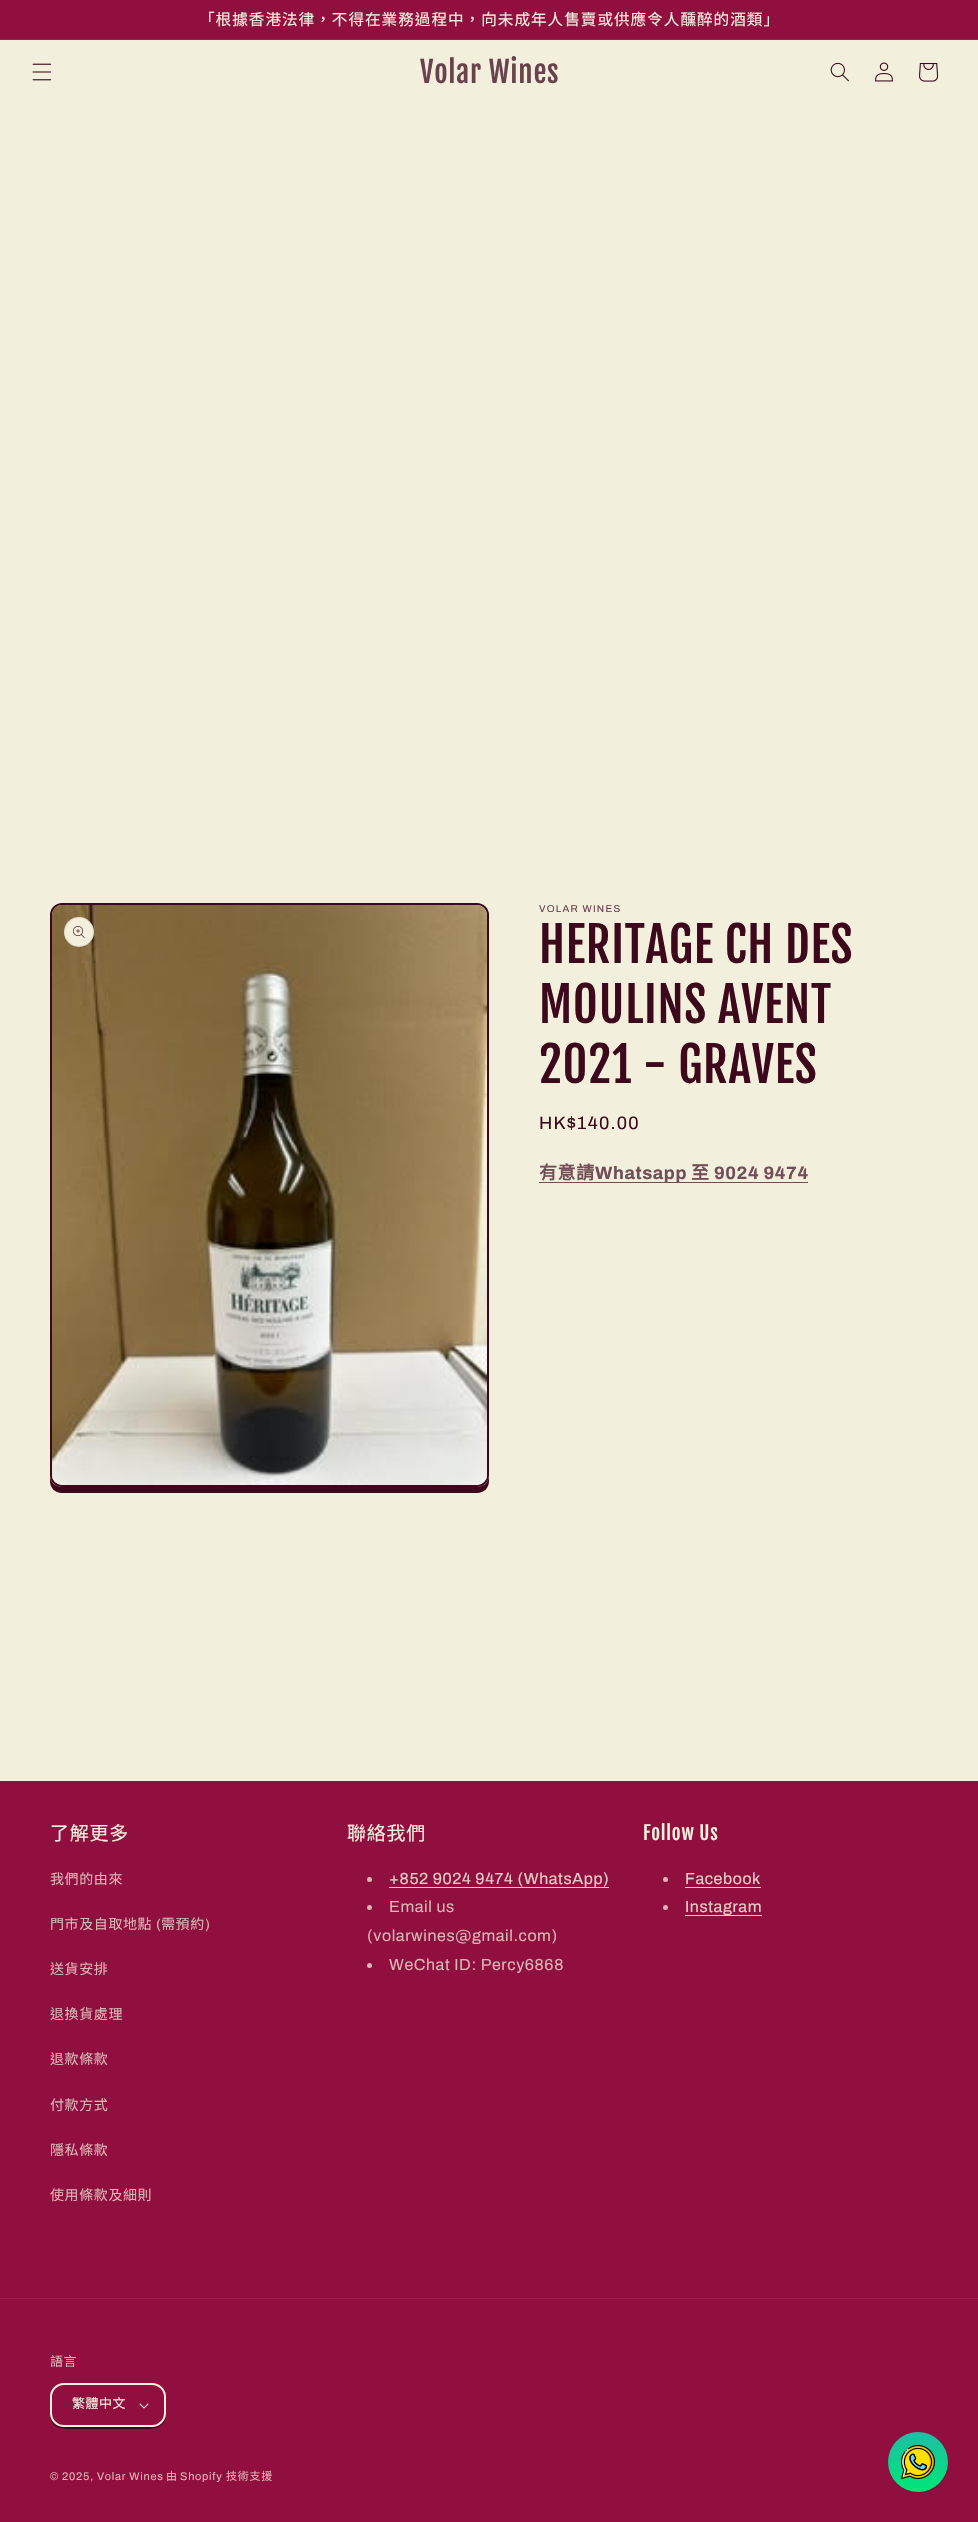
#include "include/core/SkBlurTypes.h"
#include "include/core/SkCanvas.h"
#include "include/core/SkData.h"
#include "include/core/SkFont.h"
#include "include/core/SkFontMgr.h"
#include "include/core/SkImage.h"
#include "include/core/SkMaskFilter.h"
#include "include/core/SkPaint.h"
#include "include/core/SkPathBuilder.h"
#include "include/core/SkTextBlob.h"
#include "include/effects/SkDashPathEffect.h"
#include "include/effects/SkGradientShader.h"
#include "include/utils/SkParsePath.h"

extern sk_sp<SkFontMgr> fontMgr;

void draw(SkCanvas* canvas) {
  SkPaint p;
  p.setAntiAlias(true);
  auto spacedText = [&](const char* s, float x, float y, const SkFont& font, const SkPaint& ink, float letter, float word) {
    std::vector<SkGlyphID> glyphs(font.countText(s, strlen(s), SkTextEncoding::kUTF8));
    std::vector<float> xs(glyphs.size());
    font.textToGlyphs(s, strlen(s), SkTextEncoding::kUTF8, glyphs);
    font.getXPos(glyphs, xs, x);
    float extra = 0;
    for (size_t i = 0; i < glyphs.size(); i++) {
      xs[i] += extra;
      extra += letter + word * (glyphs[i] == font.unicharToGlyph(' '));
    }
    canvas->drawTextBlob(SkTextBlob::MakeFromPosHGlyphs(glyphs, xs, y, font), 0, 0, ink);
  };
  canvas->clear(SkColorSetRGB(242, 239, 221));
  p.setColor(SkColorSetRGB(145, 15, 63));
  canvas->drawRect(SkRect::MakeLTRB(0, 0, 978, 39), p);
  p.setColor(SkColorSetRGB(153, 33, 76));
  canvas->drawRect(SkRect::MakeLTRB(0, 39, 978, 40), p);
  canvas->drawImageRect(SkImages::DeferredFromEncodedData(SkData::MakeFromFileName("images/1.png")), SkRect::MakeLTRB(32, 63, 52, 81), SkSamplingOptions());
  canvas->drawImageRect(SkImages::DeferredFromEncodedData(SkData::MakeFromFileName("images/2.png")), SkRect::MakeLTRB(830, 62, 849, 82), SkSamplingOptions());
  canvas->drawImageRect(SkImages::DeferredFromEncodedData(SkData::MakeFromFileName("images/3.png")), SkRect::MakeLTRB(875, 62, 893, 82), SkSamplingOptions());
  canvas->drawImageRect(SkImages::DeferredFromEncodedData(SkData::MakeFromFileName("images/4.png")), SkRect::MakeLTRB(919, 63, 939, 82), SkSamplingOptions());
  p.setColor(SkColorSetRGB(61, 8, 27));
  canvas->drawPath(SkPathBuilder().moveTo(50, 1475).lineTo(50, 1481).cubicTo(50, 1488, 55, 1493, 62, 1493).lineTo(477, 1493).cubicTo(484, 1493, 489, 1488, 489, 1481).lineTo(489, 1475).cubicTo(489, 1482, 484, 1487, 477, 1487).lineTo(62, 1487).cubicTo(55, 1487, 50, 1482, 50, 1475).close().detach(), p);
  p.setColor(SkColorSetRGB(242, 239, 221));
  canvas->drawRoundRect(SkRect::MakeLTRB(51, 904, 488, 1486), 11, 11, p);
  p.setStyle(SkPaint::kStroke_Style);
  p.setStrokeWidth(2);
  p.setColor(SkColorSetRGB(61, 8, 27));
  canvas->drawRoundRect(SkRect::MakeLTRB(51, 904, 488, 1486), 11, 11, p);
  canvas->drawImageRect(SkImages::DeferredFromEncodedData(SkData::MakeFromFileName("images/5.png")), SkRect::MakeLTRB(52, 905, 487, 1485), SkSamplingOptions());
  p.setStyle(SkPaint::kFill_Style);
  p.setColor(SkColorSetRGB(242, 239, 221));
  canvas->drawCircle(79, 932, 15, p);
  p.setStyle(SkPaint::kStroke_Style);
  p.setStrokeWidth(1);
  p.setColor(SkColorSetARGB(26, 61, 8, 27));
  canvas->drawCircle(79, 932, 14.5f, p);
  canvas->drawImageRect(SkImages::DeferredFromEncodedData(SkData::MakeFromFileName("images/6.png")), SkRect::MakeLTRB(73, 926, 85, 938), SkSamplingOptions());
  p.setStyle(SkPaint::kFill_Style);
  p.setColor(SkColorSetRGB(115, 77, 85));
  canvas->drawRect(SkRect::MakeLTRB(539, 1182, 808, 1183), p);
  p.setColor(SkColorSetRGB(145, 15, 63));
  canvas->drawRect(SkRect::MakeLTRB(0, 1781, 978, 2522), p);
  p.setColor(SkColorSetRGB(218, 183, 182));
  canvas->drawCircle(369.5f, 1879.5f, 2.5f, p);
  p.setColor(SkColorSetRGB(227, 205, 197));
  canvas->drawRect(SkRect::MakeLTRB(389, 1887, 609, 1888), p);
  p.setColor(SkColorSetRGB(218, 183, 182));
  canvas->drawCircle(369.5f, 1907.5f, 2.5f, p);
  canvas->drawCircle(369.5f, 1965.5f, 2.5f, p);
  canvas->drawCircle(665.5f, 1879.5f, 2.5f, p);
  p.setColor(SkColorSetRGB(227, 205, 197));
  canvas->drawRect(SkRect::MakeLTRB(685, 1887, 761, 1888), p);
  p.setColor(SkColorSetRGB(218, 183, 182));
  canvas->drawCircle(665.5f, 1907.5f, 2.5f, p);
  p.setColor(SkColorSetRGB(227, 205, 197));
  canvas->drawRect(SkRect::MakeLTRB(685, 1915, 762, 1916), p);
  p.setColor(SkColorSetRGB(153, 33, 76));
  canvas->drawRect(SkRect::MakeLTRB(0, 2298, 978, 2299), p);
  p.setColor(SkColorSetRGB(61, 8, 27));
  canvas->drawPath(SkPathBuilder().moveTo(50, 2413).cubicTo(50, 2431, 65, 2429, 79, 2429).lineTo(137, 2429).cubicTo(151, 2429, 166, 2431, 166, 2413).cubicTo(166, 2421, 160, 2427, 152, 2427).lineTo(64, 2427).cubicTo(56, 2427, 50, 2421, 50, 2413).close().detach(), p);
  p.setColor(SkColorSetRGB(145, 15, 63));
  canvas->drawRoundRect(SkRect::MakeLTRB(50, 2383, 166, 2427), 14, 14, p);
  canvas->drawImageRect(SkImages::DeferredFromEncodedData(SkData::MakeFromFileName("images/7.png")), SkRect::MakeLTRB(139, 2403, 149, 2409), SkSamplingOptions());
  p.setStyle(SkPaint::kStroke_Style);
  p.setStrokeWidth(2);
  p.setColor(SkColorSetRGB(242, 239, 221));
  canvas->drawRoundRect(SkRect::MakeLTRB(51, 2384, 165, 2426), 13, 13, p);
  p.setStyle(SkPaint::kFill_Style);
  p.setColor(SkColorSetARGB(38, 0, 0, 0));
  p.setMaskFilter(SkMaskFilter::MakeBlur(kNormal_SkBlurStyle, 1));
  canvas->drawRoundRect(SkRect::MakeLTRB(888, 2433, 948, 2493), 30, 30, p);
  p.setMaskFilter(nullptr);
  {
    const SkColor colors[] = {SkColorSetRGB(30, 190, 165), SkColorSetRGB(1, 230, 119)};
    const float stops[] = {0, 1};
    const SkPoint ends[] = {{918, 2432}, {918, 2492}};
    p.setShader(SkGradientShader::MakeLinear(ends, colors, stops, 2, SkTileMode::kClamp));
    p.setAlpha(255);
  }
  canvas->drawCircle(918, 2462, 30, p);
  canvas->drawImageRect(SkImages::DeferredFromEncodedData(SkData::MakeFromFileName("images/8.png")), SkRect::MakeLTRB(901, 2445, 935, 2479), SkSamplingOptions());
  SkFont font1(fontMgr->matchFamilyStyle("Noto Sans CJK TC", SkFontStyle::Normal()), 15.6f);
  font1.setSubpixel(true);
  p.setShader(nullptr);
  p.setColor(SkColorSetRGB(242, 239, 221));
  spacedText("「根據香港法律，不得在業務過程中，向未成年人售賣或供應令人醺醉的酒類」", 199, 25, font1, p, 1, 0);
  SkFont font2(fontMgr->matchFamilyStyle("Fjalla One", SkFontStyle::Normal()), 29);
  font2.setSubpixel(true);
  p.setColor(SkColorSetRGB(106, 66, 76));
  spacedText("Volar Wines", 420, 83, font2, p, 0.75f, 0);
  SkFont font3(fontMgr->matchFamilyStyle("Archivo", SkFontStyle::Normal()), 10);
  font3.setSubpixel(true);
  spacedText("VOLAR WINES", 539, 912, font3, p, 1.25f, 0);
  SkFont font4(fontMgr->matchFamilyStyle("Fjalla One", SkFontStyle::Normal()), 48);
  font4.setSubpixel(true);
  p.setColor(SkColorSetRGB(61, 8, 27));
  spacedText("HERITAGE CH DES", 539, 963, font4, p, 0.75f, 0);
  spacedText("MOULINS AVENT", 539, 1023, font4, p, 0.75f, 0);
  spacedText("2021 - GRAVES", 539, 1083, font4, p, 0.75f, 0);
  SkFont font5(fontMgr->matchFamilyStyle("Archivo", SkFontStyle::Normal()), 18);
  font5.setSubpixel(true);
  spacedText("HK$140.00", 539, 1129, font5, p, 1.25f, 0);
  SkFont font6(fontMgr->matchFamilyStyle("Noto Sans CJK TC", SkFontStyle::Bold()), 18);
  font6.setSubpixel(true);
  p.setColor(SkColorSetRGB(115, 77, 85));
  spacedText("有意請", 539, 1179, font6, p, 0.6f, 0);
  SkFont font7(fontMgr->matchFamilyStyle("Archivo", SkFontStyle::Bold()), 18);
  font7.setSubpixel(true);
  spacedText("Whatsapp", 595, 1179, font7, p, 0.6f, 0);
  spacedText("至", 691, 1179, font6, p, 0.6f, 0);
  spacedText("9024 9474", 714, 1179, font7, p, 0.6f, 0);
  SkFont font8(fontMgr->matchFamilyStyle("Noto Sans CJK TC", SkFontStyle::Normal()), 19);
  font8.setSubpixel(true);
  p.setColor(SkColorSetRGB(242, 239, 221));
  spacedText("了解更多", 50, 1840, font8, p, 0.75f, 0);
  SkFont font9(fontMgr->matchFamilyStyle("Noto Sans CJK TC", SkFontStyle::Normal()), 14);
  font9.setSubpixel(true);
  p.setColor(SkColorSetRGB(218, 183, 182));
  spacedText("我們的由來", 50, 1884, font9, p, 0.6f, 0);
  spacedText("門市及自取地點", 50, 1929, font9, p, 0.6f, 0);
  SkFont font10(fontMgr->matchFamilyStyle("Archivo", SkFontStyle::Normal()), 14);
  font10.setSubpixel(true);
  spacedText("(", 156, 1929, font10, p, 0.6f, 0);
  spacedText("需預約", 161, 1929, font9, p, 0.6f, 0);
  spacedText(")", 205, 1929, font10, p, 0.6f, 0);
  spacedText("送貨安排", 50, 1974, font9, p, 0.6f, 0);
  spacedText("退換貨處理", 50, 2019, font9, p, 0.6f, 0);
  spacedText("退款條款", 50, 2064, font9, p, 0.6f, 0);
  spacedText("付款方式", 50, 2110, font9, p, 0.6f, 0);
  spacedText("隱私條款", 50, 2155, font9, p, 0.6f, 0);
  spacedText("使用條款及細則", 50, 2200, font9, p, 0.6f, 0);
  p.setColor(SkColorSetRGB(242, 239, 221));
  spacedText("聯絡我們", 347, 1840, font8, p, 0.75f, 0);
  SkFont font11(fontMgr->matchFamilyStyle("Archivo", SkFontStyle::Normal()), 16);
  font11.setSubpixel(true);
  p.setColor(SkColorSetRGB(227, 205, 197));
  spacedText("+852 9024 9474 (WhatsApp)", 389, 1884, font11, p, 0.6f, 0);
  p.setColor(SkColorSetRGB(218, 183, 182));
  spacedText("Email us", 389, 1912, font11, p, 0.6f, 0);
  spacedText("(volarwines@gmail.com)", 367, 1941, font11, p, 0.6f, 0);
  spacedText("WeChat ID: Percy6868", 389, 1970, font11, p, 0.6f, 0);
  SkFont font12(fontMgr->matchFamilyStyle("Fjalla One", SkFontStyle::Normal()), 19);
  font12.setSubpixel(true);
  p.setColor(SkColorSetRGB(242, 239, 221));
  spacedText("Follow Us", 643, 1840, font12, p, 0.75f, 0);
  p.setColor(SkColorSetRGB(227, 205, 197));
  spacedText("Facebook", 685, 1884, font11, p, 0.6f, 0);
  spacedText("Instagram", 685, 1912, font11, p, 0.6f, 0);
  SkFont font13(fontMgr->matchFamilyStyle("Noto Sans CJK TC", SkFontStyle::Normal()), 13);
  font13.setSubpixel(true);
  p.setColor(SkColorSetRGB(218, 183, 182));
  spacedText("語言", 50, 2366, font13, p, 0.5f, 0);
  p.setColor(SkColorSetRGB(242, 239, 221));
  spacedText("繁體中文", 72, 2408, font13, p, 0.5f, 0);
  SkFont font14(fontMgr->matchFamilyStyle("Archivo", SkFontStyle::Normal()), 11);
  font14.setSubpixel(true);
  p.setColor(SkColorSetRGB(218, 183, 182));
  spacedText("© 2025, Volar Wines", 50, 2480, font14, p, 0.75f, 0);
  SkFont font15(fontMgr->matchFamilyStyle("Noto Sans CJK TC", SkFontStyle::Normal()), 11);
  font15.setSubpixel(true);
  spacedText("由", 166, 2480, font15, p, 0.75f, 0);
  spacedText("Shopify", 180, 2480, font14, p, 0.75f, 0);
  spacedText("技術支援", 226, 2480, font15, p, 0.75f, 0);
}
